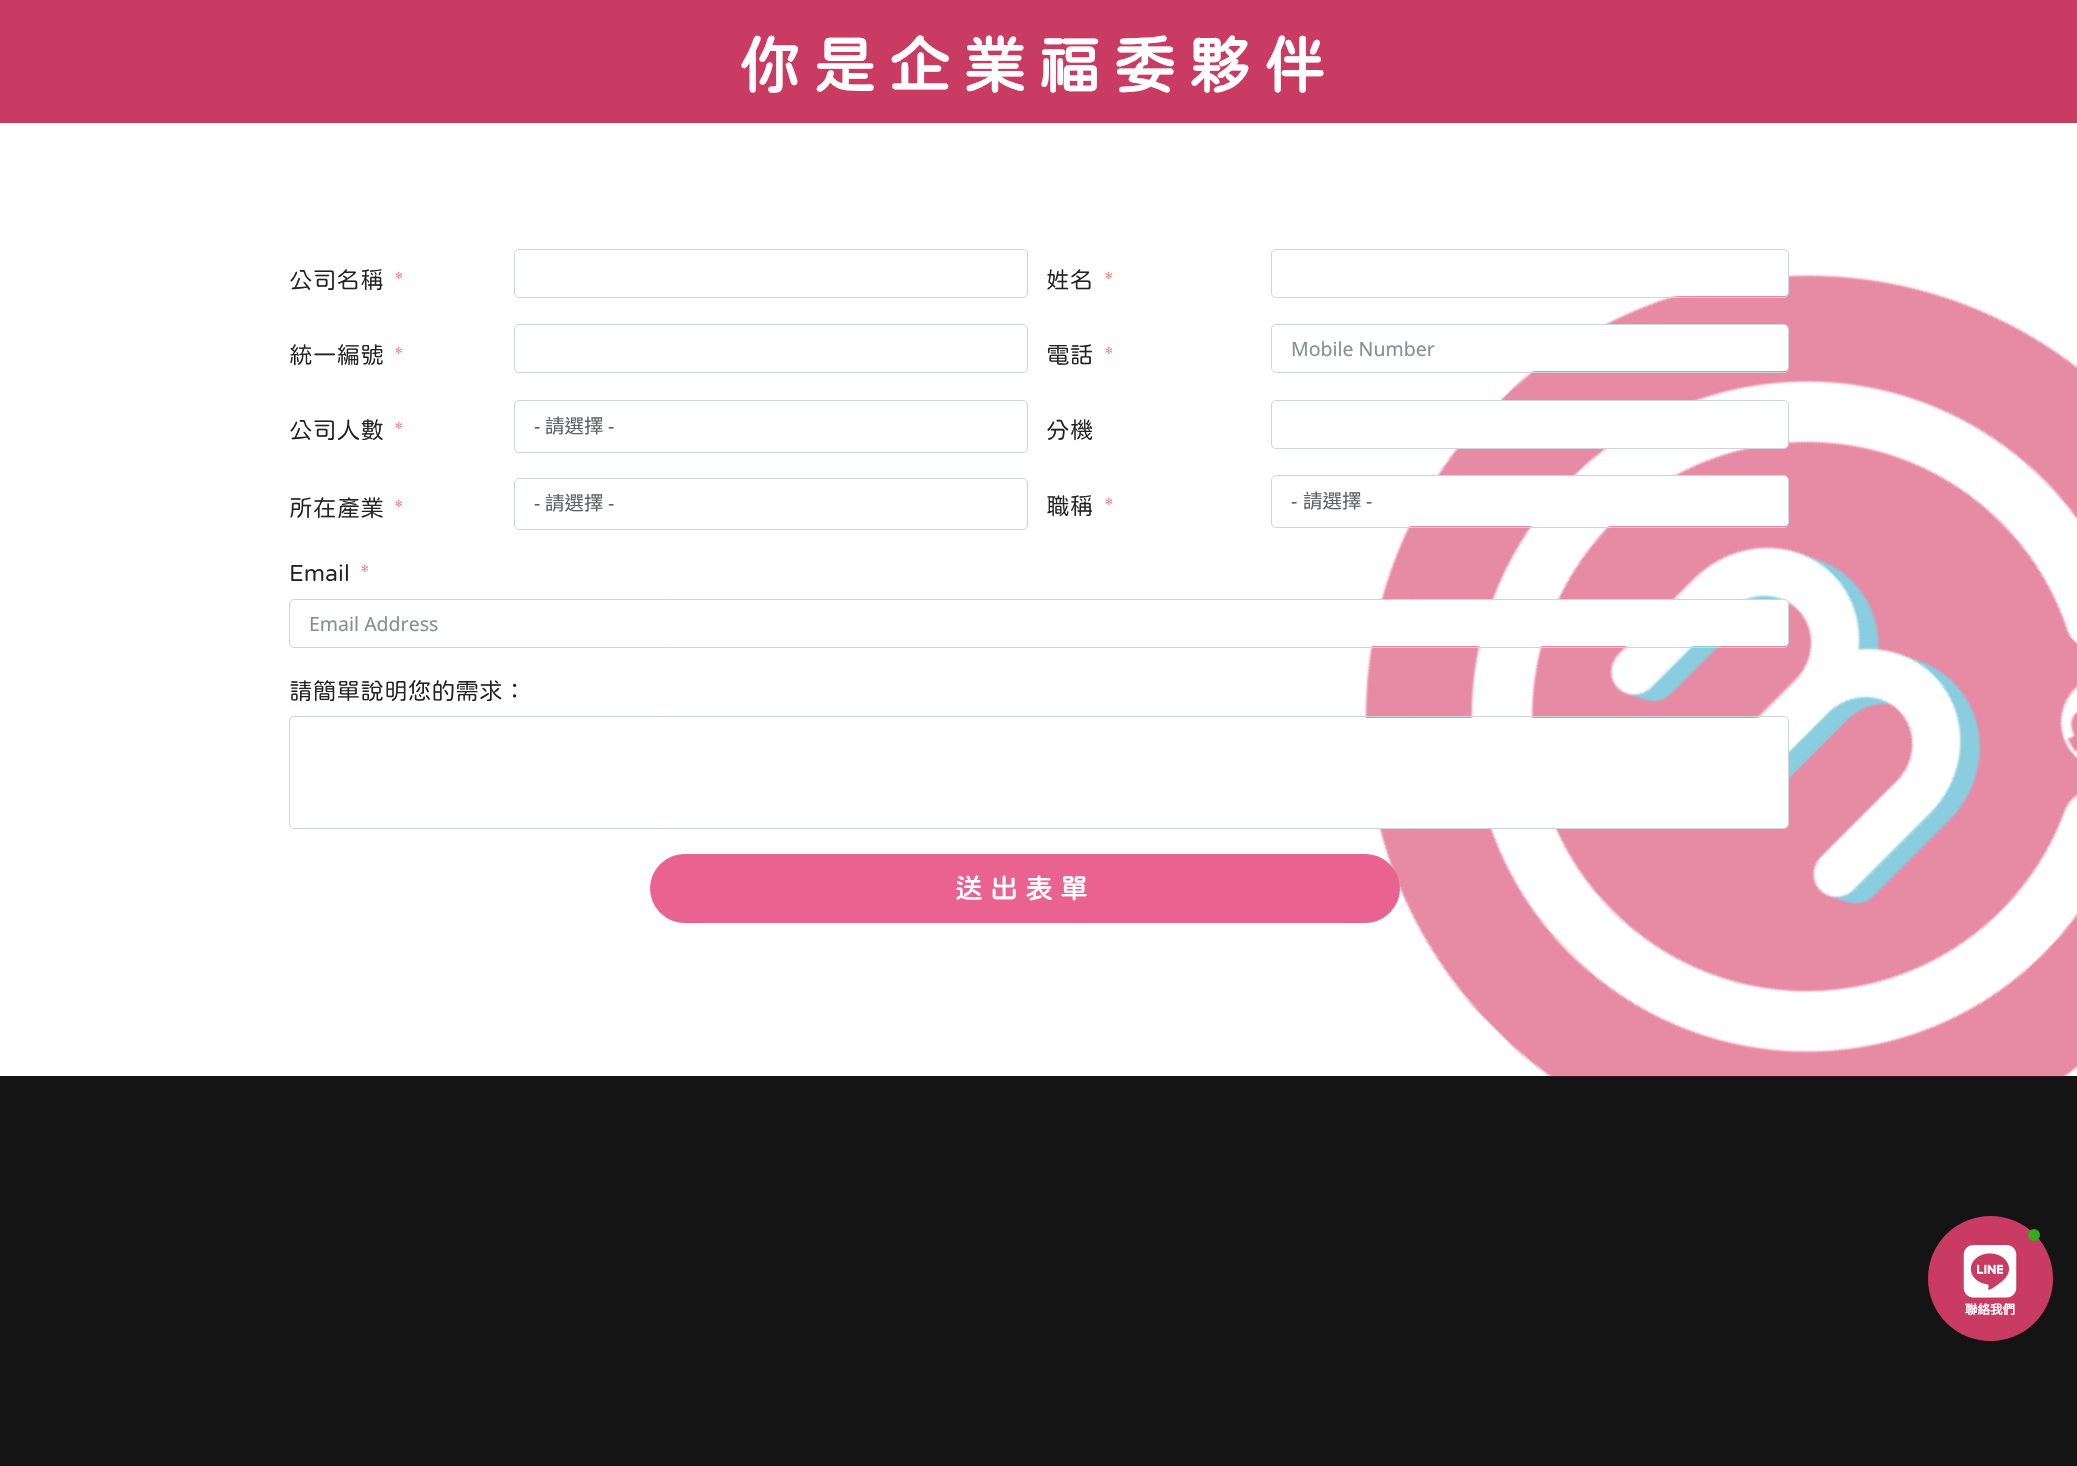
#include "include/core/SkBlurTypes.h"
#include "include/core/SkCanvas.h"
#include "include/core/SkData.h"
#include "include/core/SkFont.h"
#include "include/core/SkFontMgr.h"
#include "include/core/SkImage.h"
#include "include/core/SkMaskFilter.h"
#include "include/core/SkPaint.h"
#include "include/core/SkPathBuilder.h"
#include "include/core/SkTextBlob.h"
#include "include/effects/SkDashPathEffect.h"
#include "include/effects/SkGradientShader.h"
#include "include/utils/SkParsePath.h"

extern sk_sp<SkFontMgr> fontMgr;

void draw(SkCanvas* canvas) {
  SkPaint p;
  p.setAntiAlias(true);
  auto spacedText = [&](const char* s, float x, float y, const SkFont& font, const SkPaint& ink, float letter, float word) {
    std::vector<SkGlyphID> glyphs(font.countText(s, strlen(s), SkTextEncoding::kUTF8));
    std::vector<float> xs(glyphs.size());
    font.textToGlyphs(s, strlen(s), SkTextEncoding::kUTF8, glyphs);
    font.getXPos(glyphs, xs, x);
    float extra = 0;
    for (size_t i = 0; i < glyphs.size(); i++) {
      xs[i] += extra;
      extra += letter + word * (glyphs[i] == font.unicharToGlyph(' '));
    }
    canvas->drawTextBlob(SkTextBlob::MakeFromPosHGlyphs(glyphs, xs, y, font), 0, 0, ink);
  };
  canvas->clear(SkColorSetRGB(20, 20, 20));
  p.setColor(SK_ColorWHITE);
  canvas->drawRect(SkRect::MakeLTRB(0, 123, 2077, 1076), p);
  p.setColor(SkColorSetRGB(202, 59, 99));
  canvas->drawRect(SkRect::MakeLTRB(0, 0, 2077, 123), p);
  p.setStyle(SkPaint::kStroke_Style);
  p.setStrokeWidth(1);
  p.setColor(SkColorSetRGB(206, 212, 218));
  canvas->drawRoundRect(SkRect::MakeLTRB(514.5f, 249.5f, 1027.5f, 297.5f), 4.5f, 4.5f, p);
  canvas->drawRoundRect(SkRect::MakeLTRB(514.5f, 324.5f, 1027.5f, 372.5f), 4.5f, 4.5f, p);
  canvas->drawRoundRect(SkRect::MakeLTRB(514.5f, 400.5f, 1027.5f, 452.5f), 4.5f, 4.5f, p);
  canvas->drawRoundRect(SkRect::MakeLTRB(514.5f, 478.5f, 1027.5f, 529.5f), 4.5f, 4.5f, p);
  canvas->drawImageRect(SkImages::DeferredFromEncodedData(SkData::MakeFromFileName("images/1.png")), SkRect::MakeLTRB(1364, 274, 2077, 1077), SkSamplingOptions());
  p.setStyle(SkPaint::kFill_Style);
  p.setColor(SK_ColorWHITE);
  canvas->drawRoundRect(SkRect::MakeLTRB(1273, 250, 1788, 296), 4, 4, p);
  p.setStyle(SkPaint::kStroke_Style);
  p.setColor(SkColorSetRGB(206, 212, 218));
  canvas->drawRoundRect(SkRect::MakeLTRB(1271.5f, 249.5f, 1788.5f, 297.5f), 4.5f, 4.5f, p);
  p.setStyle(SkPaint::kFill_Style);
  p.setColor(SK_ColorWHITE);
  canvas->drawRoundRect(SkRect::MakeLTRB(1273, 325, 1788, 371), 4, 4, p);
  p.setStyle(SkPaint::kStroke_Style);
  p.setColor(SkColorSetRGB(206, 212, 218));
  canvas->drawRoundRect(SkRect::MakeLTRB(1271.5f, 324.5f, 1788.5f, 372.5f), 4.5f, 4.5f, p);
  p.setStyle(SkPaint::kFill_Style);
  p.setColor(SK_ColorWHITE);
  canvas->drawRoundRect(SkRect::MakeLTRB(1273, 401, 1788, 448), 4, 4, p);
  p.setStyle(SkPaint::kStroke_Style);
  p.setColor(SkColorSetRGB(206, 212, 218));
  canvas->drawRoundRect(SkRect::MakeLTRB(1271.5f, 400.5f, 1788.5f, 448.5f), 4.5f, 4.5f, p);
  p.setStyle(SkPaint::kFill_Style);
  p.setColor(SK_ColorWHITE);
  canvas->drawRoundRect(SkRect::MakeLTRB(1273, 476, 1788, 526), 4, 4, p);
  p.setStyle(SkPaint::kStroke_Style);
  p.setColor(SkColorSetRGB(206, 212, 218));
  canvas->drawRoundRect(SkRect::MakeLTRB(1271.5f, 475.5f, 1788.5f, 527.5f), 4.5f, 4.5f, p);
  p.setStyle(SkPaint::kFill_Style);
  p.setColor(SK_ColorWHITE);
  canvas->drawRoundRect(SkRect::MakeLTRB(290, 600, 1788, 646), 4, 4, p);
  p.setStyle(SkPaint::kStroke_Style);
  p.setColor(SkColorSetRGB(206, 212, 218));
  canvas->drawRoundRect(SkRect::MakeLTRB(289.5f, 599.5f, 1788.5f, 647.5f), 4.5f, 4.5f, p);
  p.setStyle(SkPaint::kFill_Style);
  p.setColor(SK_ColorWHITE);
  canvas->drawRoundRect(SkRect::MakeLTRB(290, 718, 1788, 828), 4, 4, p);
  p.setStyle(SkPaint::kStroke_Style);
  p.setColor(SkColorSetRGB(206, 212, 218));
  canvas->drawRoundRect(SkRect::MakeLTRB(289.5f, 716.5f, 1788.5f, 828.5f), 4.5f, 4.5f, p);
  p.setStyle(SkPaint::kFill_Style);
  p.setColor(SkColorSetRGB(234, 99, 144));
  canvas->drawRoundRect(SkRect::MakeLTRB(650.5f, 854.5f, 1399.5f, 922.5f), 34, 34, p);
  p.setStyle(SkPaint::kStroke_Style);
  canvas->drawRoundRect(SkRect::MakeLTRB(650.5f, 854.5f, 1399.5f, 922.5f), 34, 34, p);
  p.setStyle(SkPaint::kFill_Style);
  p.setColor(SkColorSetRGB(202, 59, 99));
  canvas->drawCircle(1990.5f, 1278.5f, 62.5f, p);
  p.setColor(SkColorSetRGB(53, 172, 25));
  canvas->drawCircle(2034, 1235, 6, p);
  canvas->drawImageRect(SkImages::DeferredFromEncodedData(SkData::MakeFromFileName("images/2.png")), SkRect::MakeLTRB(1963, 1245, 2017, 1298), SkSamplingOptions());
  SkFont font1(fontMgr->matchFamilyStyle("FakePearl", SkFontStyle(600, SkFontStyle::kNormal_Width, SkFontStyle::kUpright_Slant)), 62.5f);
  font1.setSubpixel(true);
  p.setColor(SK_ColorWHITE);
  spacedText("你是企業福委夥伴", 739, 86, font1, p, 12.5f, 0);
  SkFont font2(fontMgr->matchFamilyStyle("FakePearl", SkFontStyle(300, SkFontStyle::kNormal_Width, SkFontStyle::kUpright_Slant)), 23.75f);
  font2.setSubpixel(true);
  p.setColor(SkColorSetRGB(34, 34, 34));
  canvas->drawString("公司名稱", 289, 288, font2, p);
  p.setColor(SkColorSetRGB(245, 108, 108));
  canvas->drawString("*", 394, 288, font2, p);
  p.setColor(SkColorSetRGB(34, 34, 34));
  canvas->drawString("統一編號", 289, 363, font2, p);
  p.setColor(SkColorSetRGB(245, 108, 108));
  canvas->drawString("*", 394, 363, font2, p);
  p.setColor(SkColorSetRGB(34, 34, 34));
  canvas->drawString("公司人數", 289, 438, font2, p);
  p.setColor(SkColorSetRGB(245, 108, 108));
  canvas->drawString("*", 394, 438, font2, p);
  SkFont font3(fontMgr->matchFamilyStyle("Noto Sans", SkFontStyle::Normal()), 19.5f);
  font3.setSubpixel(true);
  p.setColor(SkColorSetRGB(96, 98, 102));
  canvas->drawString("-", 534, 433, font3, p);
  SkFont font4(fontMgr->matchFamilyStyle("Noto Sans CJK TC", SkFontStyle::Normal()), 19.5f);
  font4.setSubpixel(true);
  canvas->drawString("請選擇", 545, 433, font4, p);
  canvas->drawString("-", 608, 433, font3, p);
  p.setColor(SkColorSetRGB(34, 34, 34));
  canvas->drawString("所在產業", 289, 516, font2, p);
  p.setColor(SkColorSetRGB(245, 108, 108));
  canvas->drawString("*", 394, 516, font2, p);
  p.setColor(SkColorSetRGB(96, 98, 102));
  canvas->drawString("-", 534, 510, font3, p);
  canvas->save();
  canvas->clipRect(SkRect::MakeLTRB(534, 494, 1008, 514));
  canvas->drawString("請選擇", 545, 510, font4, p);
  canvas->restore();
  canvas->drawString("-", 608, 510, font3, p);
  p.setColor(SkColorSetRGB(34, 34, 34));
  canvas->drawString("姓名", 1046, 288, font2, p);
  p.setColor(SkColorSetRGB(245, 108, 108));
  canvas->drawString("*", 1104, 288, font2, p);
  p.setColor(SkColorSetRGB(34, 34, 34));
  canvas->drawString("電話", 1046, 363, font2, p);
  p.setColor(SkColorSetRGB(245, 108, 108));
  canvas->drawString("*", 1104, 363, font2, p);
  p.setColor(SkColorSetRGB(134, 142, 150));
  canvas->drawString("Mobile Number", 1291, 356, font3, p);
  p.setColor(SkColorSetRGB(34, 34, 34));
  canvas->drawString("分機", 1046, 438, font2, p);
  canvas->drawString("職稱", 1046, 514, font2, p);
  p.setColor(SkColorSetRGB(245, 108, 108));
  canvas->drawString("*", 1104, 514, font2, p);
  p.setColor(SkColorSetRGB(96, 98, 102));
  canvas->drawString("-", 1291, 508, font3, p);
  canvas->drawString("請選擇", 1303, 508, font4, p);
  canvas->drawString("-", 1366, 508, font3, p);
  p.setColor(SkColorSetRGB(34, 34, 34));
  canvas->drawString("Email", 289, 581, font2, p);
  p.setColor(SkColorSetRGB(245, 108, 108));
  canvas->drawString("*", 360, 581, font2, p);
  p.setColor(SkColorSetRGB(134, 142, 150));
  canvas->drawString("Email Address", 309, 631, font3, p);
  p.setColor(SkColorSetRGB(34, 34, 34));
  canvas->drawString("請簡單說明您的需求：", 289, 699, font2, p);
  SkFont font5(fontMgr->matchFamilyStyle("FakePearl", SkFontStyle::Bold()), 27.5f);
  font5.setSubpixel(true);
  p.setColor(SK_ColorWHITE);
  spacedText("送出表單", 955, 898, font5, p, 7.5f, 0);
  SkFont font6(fontMgr->matchFamilyStyle("Noto Sans CJK TC", SkFontStyle::Bold()), 12.5f);
  font6.setSubpixel(true);
  canvas->drawString("聯絡我們", 1965, 1314, font6, p);
}
